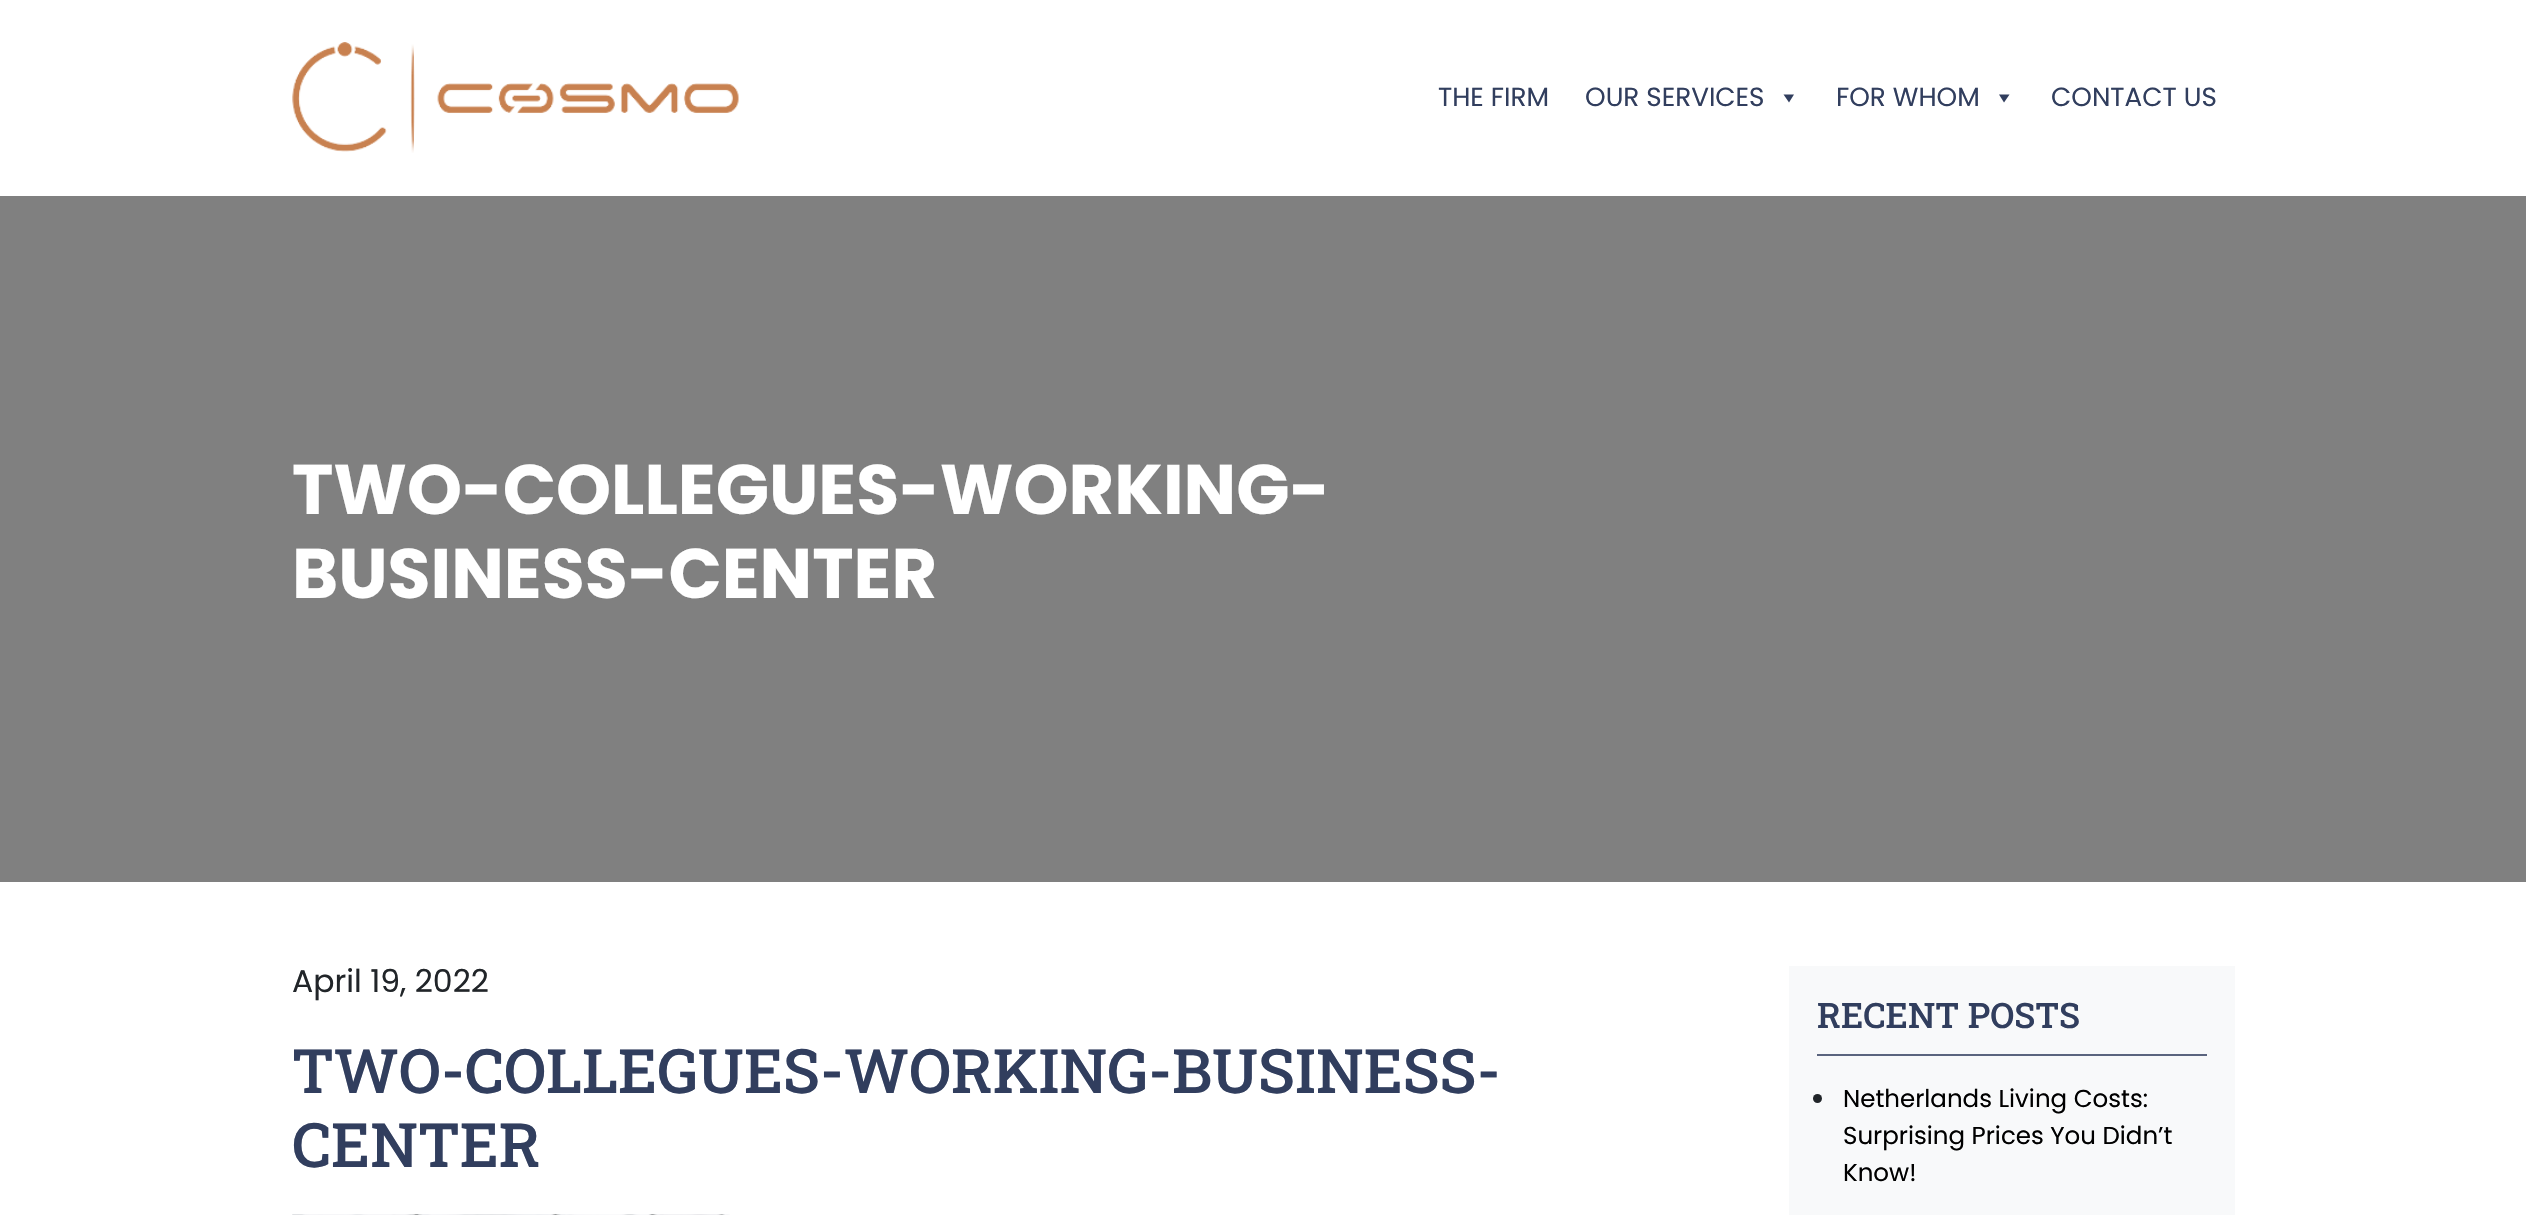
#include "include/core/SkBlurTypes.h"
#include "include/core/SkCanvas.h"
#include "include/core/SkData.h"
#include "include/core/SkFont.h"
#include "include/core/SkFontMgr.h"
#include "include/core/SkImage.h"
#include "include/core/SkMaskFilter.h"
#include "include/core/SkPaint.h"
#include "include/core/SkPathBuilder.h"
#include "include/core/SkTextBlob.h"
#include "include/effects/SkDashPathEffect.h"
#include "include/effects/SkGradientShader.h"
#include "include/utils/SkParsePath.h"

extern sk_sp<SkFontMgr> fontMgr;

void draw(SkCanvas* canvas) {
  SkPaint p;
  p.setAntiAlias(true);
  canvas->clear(SK_ColorWHITE);
  canvas->drawImageRect(SkImages::DeferredFromEncodedData(SkData::MakeFromFileName("images/1.png")), SkRect::MakeLTRB(292, 42, 739, 153), SkSamplingOptions());
  p.setColor(SkColorSetRGB(49, 62, 94));
  canvas->drawPath(SkPathBuilder().moveTo(1794, 94.5f).lineTo(1789, 102.5f).lineTo(1783.5f, 94.5f).close().detach(), p);
  canvas->drawPath(SkPathBuilder().moveTo(2009.5f, 94.5f).lineTo(2004, 102.5f).lineTo(1999, 94.5f).close().detach(), p);
  p.setColor(SkColorSetRGB(128, 128, 128));
  canvas->drawRect(SkRect::MakeLTRB(0, 196, 2526, 882), p);
  canvas->drawImageRect(SkImages::DeferredFromEncodedData(SkData::MakeFromFileName("images/2.png")), SkRect::MakeLTRB(292, 1214, 730, 1215), SkSamplingOptions());
  p.setColor(SkColorSetRGB(248, 249, 250));
  canvas->drawRect(SkRect::MakeLTRB(1789, 966, 2235, 1215), p);
  p.setColor(SkColorSetRGB(90, 100, 126));
  canvas->drawRect(SkRect::MakeLTRB(1817, 1054, 2207, 1056), p);
  p.setColor(SkColorSetRGB(33, 37, 41));
  canvas->drawCircle(1817.5f, 1098.5f, 4.5f, p);
  SkFont font1(fontMgr->matchFamilyStyle("Poppins", SkFontStyle::Normal()), 26.25f);
  font1.setSubpixel(true);
  p.setColor(SkColorSetRGB(49, 62, 94));
  canvas->drawString("THE FIRM", 1438, 106, font1, p);
  canvas->drawString("OUR SERVICES", 1585, 106, font1, p);
  canvas->drawString("FOR WHOM", 1836, 106, font1, p);
  canvas->drawString("CONTACT US", 2051, 106, font1, p);
  SkFont font2(fontMgr->matchFamilyStyle("Poppins", SkFontStyle::Bold()), 70);
  font2.setSubpixel(true);
  p.setColor(SK_ColorWHITE);
  canvas->drawString("TWO-COLLEGUES-WORKING-", 292, 514, font2, p);
  canvas->drawString("BUSINESS-CENTER", 292, 598, font2, p);
  SkFont font3(fontMgr->matchFamilyStyle("Poppins", SkFontStyle::Normal()), 31.5f);
  font3.setSubpixel(true);
  p.setColor(SkColorSetRGB(33, 37, 41));
  canvas->drawString("April 19, 2022", 292, 992, font3, p);
  SkFont font4(fontMgr->matchFamilyStyle("Roboto Slab", SkFontStyle(500, SkFontStyle::kNormal_Width, SkFontStyle::kUpright_Slant)), 61.25f);
  font4.setSubpixel(true);
  p.setColor(SkColorSetRGB(49, 62, 94));
  canvas->drawString("TWO-COLLEGUES-WORKING-BUSINESS-", 292, 1093, font4, p);
  canvas->drawString("CENTER", 292, 1167, font4, p);
  SkFont font5(fontMgr->matchFamilyStyle("Roboto Slab", SkFontStyle(500, SkFontStyle::kNormal_Width, SkFontStyle::kUpright_Slant)), 35);
  font5.setSubpixel(true);
  canvas->drawString("RECENT POSTS", 1817, 1028, font5, p);
  SkFont font6(fontMgr->matchFamilyStyle("Poppins", SkFontStyle::Normal()), 24.5f);
  font6.setSubpixel(true);
  p.setColor(SK_ColorBLACK);
  canvas->drawString("Netherlands Living Costs:", 1843, 1107, font6, p);
  canvas->drawString("Surprising Prices You Didn’t", 1843, 1144, font6, p);
  canvas->drawString("Know!", 1843, 1181, font6, p);
}
